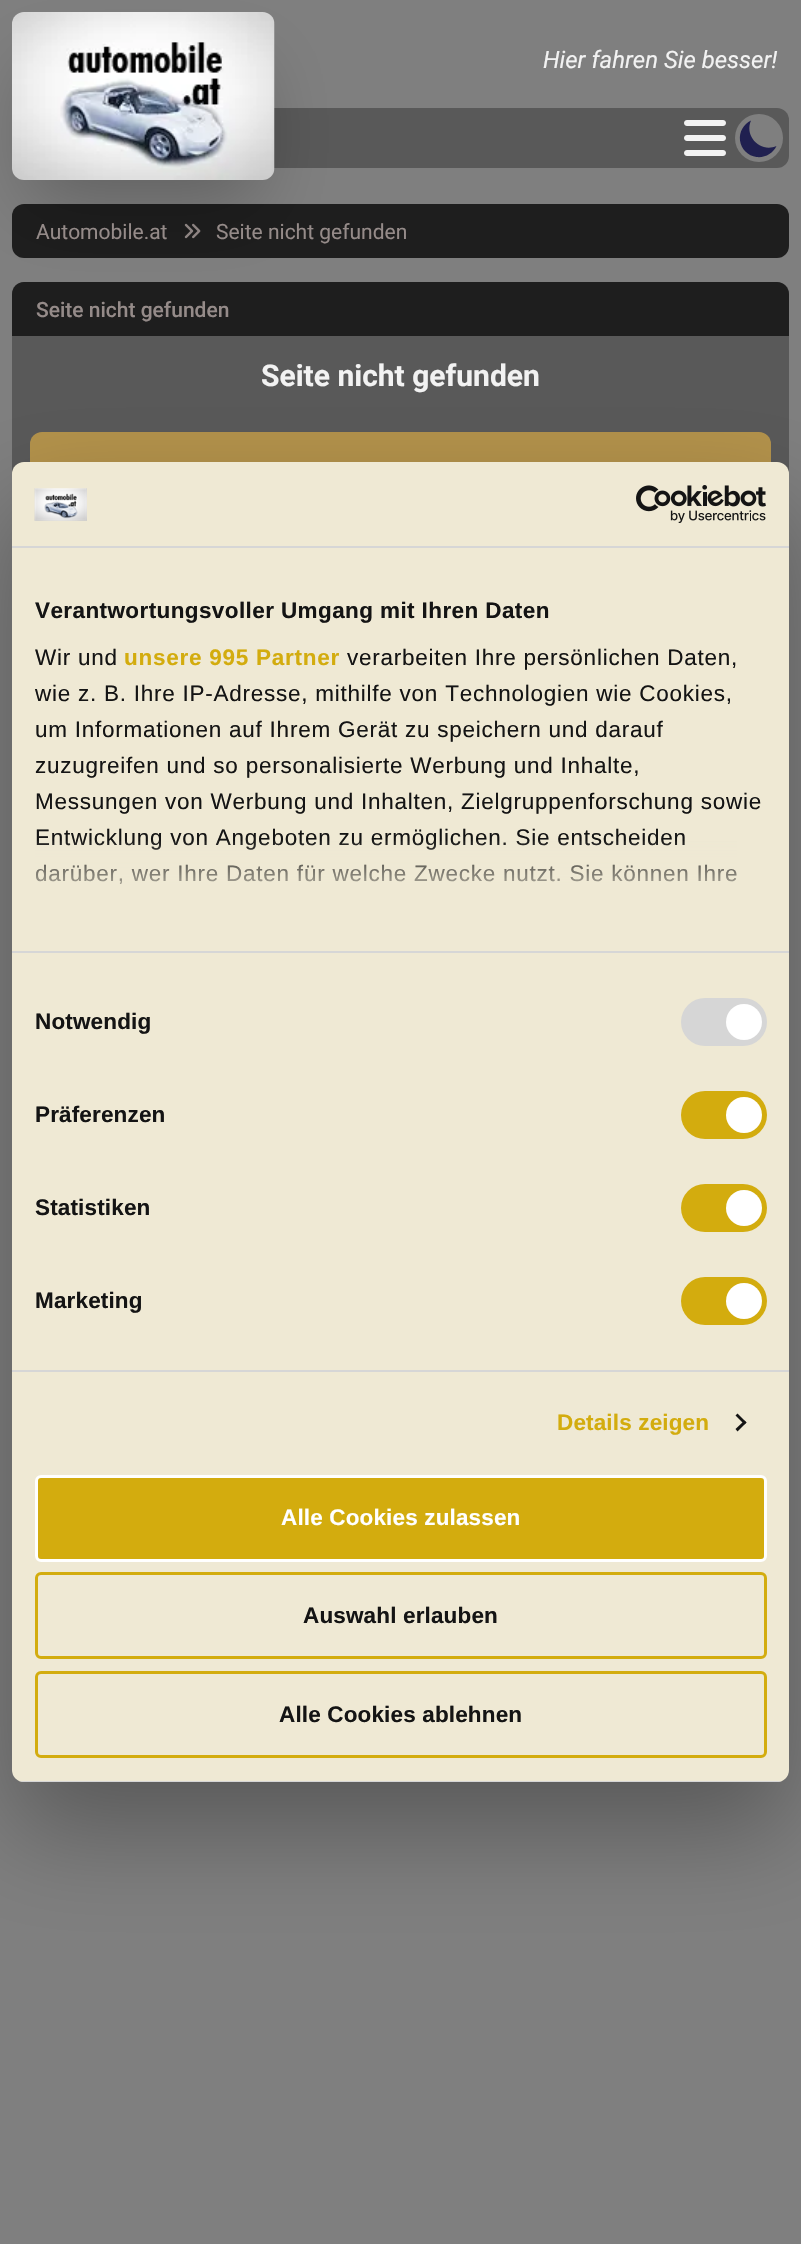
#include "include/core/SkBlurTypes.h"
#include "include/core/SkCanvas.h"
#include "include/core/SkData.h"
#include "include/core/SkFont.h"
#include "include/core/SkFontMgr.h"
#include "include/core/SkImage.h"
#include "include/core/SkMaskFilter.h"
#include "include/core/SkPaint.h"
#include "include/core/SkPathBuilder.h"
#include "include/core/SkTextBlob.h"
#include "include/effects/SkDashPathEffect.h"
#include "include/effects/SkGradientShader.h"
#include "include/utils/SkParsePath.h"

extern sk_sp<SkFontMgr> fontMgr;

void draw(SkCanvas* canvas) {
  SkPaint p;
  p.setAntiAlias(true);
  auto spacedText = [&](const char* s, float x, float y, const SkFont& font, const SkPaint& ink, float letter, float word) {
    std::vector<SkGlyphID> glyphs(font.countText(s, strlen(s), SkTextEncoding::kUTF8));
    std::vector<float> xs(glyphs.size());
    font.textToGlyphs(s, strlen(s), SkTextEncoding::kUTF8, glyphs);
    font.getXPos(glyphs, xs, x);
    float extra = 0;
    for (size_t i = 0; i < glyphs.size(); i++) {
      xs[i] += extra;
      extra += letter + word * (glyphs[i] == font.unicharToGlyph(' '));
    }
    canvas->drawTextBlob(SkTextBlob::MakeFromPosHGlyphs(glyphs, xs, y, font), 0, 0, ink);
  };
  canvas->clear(SkColorSetRGB(127, 127, 127));
  p.setColor(SkColorSetRGB(89, 89, 89));
  canvas->drawRoundRect(SkRect::MakeLTRB(12, 108, 789, 168), 12, 12, p);
  p.setColor(SkColorSetRGB(30, 30, 30));
  canvas->drawRoundRect(SkRect::MakeLTRB(12, 204, 789, 258), 12, 12, p);
  canvas->drawImageRect(SkImages::DeferredFromEncodedData(SkData::MakeFromFileName("images/3.png")), SkRect::MakeLTRB(184, 223, 201, 239), SkSamplingOptions());
  p.setColor(SkColorSetRGB(89, 89, 89));
  canvas->drawRoundRect(SkRect::MakeLTRB(12, 282, 789, 510), 12, 12, p);
  p.setColor(SkColorSetARGB(64, 0, 0, 0));
  p.setMaskFilter(SkMaskFilter::MakeBlur(kNormal_SkBlurStyle, 37.5f));
  canvas->drawRect(SkRect::MakeLTRB(30, 68, 257, 200), p);
  p.setMaskFilter(nullptr);
  canvas->drawImageRect(SkImages::DeferredFromEncodedData(SkData::MakeFromFileName("images/1.png")), SkRect::MakeLTRB(12, 12, 275, 180), SkSamplingOptions());
  canvas->drawImageRect(SkImages::DeferredFromEncodedData(SkData::MakeFromFileName("images/2.png")), SkRect::MakeLTRB(684, 120, 726, 156), SkSamplingOptions());
  p.setColor(SkColorSetRGB(127, 127, 127));
  canvas->drawCircle(759, 138, 24, p);
  p.setColor(SkColorSetRGB(32, 32, 80));
  canvas->drawPath(SkPathBuilder().moveTo(776.5f, 146).cubicTo(760.5f, 153, 744, 136.5f, 751, 120.5f).cubicTo(743.5f, 124, 739, 132, 740, 140.5f).cubicTo(741, 149, 748, 156, 756.5f, 157).cubicTo(765, 158, 773, 153.5f, 776.5f, 146).close().detach(), p);
  p.setColor(SkColorSetRGB(30, 30, 30));
  canvas->drawPath(SkPathBuilder().moveTo(24, 282).lineTo(777, 282).cubicTo(783.5f, 282, 789, 287.5f, 789, 294).lineTo(789, 336).lineTo(12, 336).lineTo(12, 294).cubicTo(12, 287.5f, 17.5f, 282, 24, 282).close().detach(), p);
  p.setColor(SkColorSetRGB(179, 146, 75));
  canvas->drawRoundRect(SkRect::MakeLTRB(30, 432, 771, 492), 12, 12, p);
  p.setColor(SkColorSetARGB(77, 0, 0, 0));
  p.setMaskFilter(SkMaskFilter::MakeBlur(kNormal_SkBlurStyle, 51));
  canvas->drawRoundRect(SkRect::MakeLTRB(12, 510, 789, 1830), 12, 12, p);
  p.setMaskFilter(nullptr);
  p.setColor(SkColorSetRGB(239, 233, 212));
  canvas->drawRoundRect(SkRect::MakeLTRB(12, 462, 789, 1782), 12, 12, p);
  p.setColor(SkColorSetRGB(214, 214, 214));
  canvas->drawRect(SkRect::MakeLTRB(12, 546, 789, 548), p);
  canvas->drawImageRect(SkImages::DeferredFromEncodedData(SkData::MakeFromFileName("images/4.png")), SkRect::MakeLTRB(34, 488, 87, 521), SkSamplingOptions());
  canvas->drawImageRect(SkImages::DeferredFromEncodedData(SkData::MakeFromFileName("images/5.png")), SkRect::MakeLTRB(636, 485, 766, 523), SkSamplingOptions());
  canvas->drawRect(SkRect::MakeLTRB(12, 951, 789, 953), p);
  canvas->drawRect(SkRect::MakeLTRB(12, 1370, 789, 1372), p);
  canvas->drawRoundRect(SkRect::MakeLTRB(681, 998, 767, 1046), 24, 24, p);
  p.setColor(SK_ColorWHITE);
  canvas->drawCircle(744, 1022, 18, p);
  p.setColor(SkColorSetRGB(211, 172, 14));
  canvas->drawRoundRect(SkRect::MakeLTRB(681, 1091, 767, 1139), 24, 24, p);
  p.setColor(SK_ColorWHITE);
  canvas->drawCircle(744, 1115, 18, p);
  p.setColor(SkColorSetRGB(211, 172, 14));
  canvas->drawRoundRect(SkRect::MakeLTRB(681, 1184, 767, 1232), 24, 24, p);
  p.setColor(SK_ColorWHITE);
  canvas->drawCircle(744, 1208, 18, p);
  p.setColor(SkColorSetRGB(211, 172, 14));
  canvas->drawRoundRect(SkRect::MakeLTRB(681, 1277, 767, 1325), 24, 24, p);
  p.setColor(SK_ColorWHITE);
  canvas->drawCircle(744, 1301, 18, p);
  p.setColor(SkColorSetRGB(20, 20, 20));
  canvas->drawPath(SkPathBuilder().moveTo(737.5f, 1413.5f).lineTo(746.5f, 1422.5f).lineTo(744.5f, 1424.5f).lineTo(735.5f, 1415.5f).close().detach(), p);
  canvas->drawPath(SkPathBuilder().moveTo(744.5f, 1420.5f).lineTo(746.5f, 1422.5f).lineTo(737.5f, 1431.5f).lineTo(735.5f, 1429).close().detach(), p);
  canvas->save();
  canvas->clipPath(SkPathBuilder().moveTo(24, 462).lineTo(777, 462).cubicTo(783.5f, 462, 789, 467.5f, 789, 474).lineTo(789, 1770).cubicTo(789, 1776.5f, 783.5f, 1782, 777, 1782).lineTo(24, 1782).cubicTo(17.5f, 1782, 12, 1776.5f, 12, 1770).lineTo(12, 474).cubicTo(12, 467.5f, 17.5f, 462, 24, 462).close().detach(), true);
  p.setColor(SkColorSetRGB(214, 214, 214));
  canvas->drawRect(SkRect::MakeLTRB(12, 1781, 789, 1782), p);
  canvas->restore();
  p.setColor(SkColorSetRGB(211, 172, 14));
  canvas->drawRoundRect(SkRect::MakeLTRB(36.5f, 1476.5f, 765.5f, 1560.5f), 4.5f, 4.5f, p);
  p.setStyle(SkPaint::kStroke_Style);
  p.setStrokeWidth(3);
  p.setColor(SK_ColorWHITE);
  canvas->drawRoundRect(SkRect::MakeLTRB(36.5f, 1476.5f, 765.5f, 1560.5f), 4.5f, 4.5f, p);
  p.setColor(SkColorSetRGB(211, 172, 14));
  canvas->drawRoundRect(SkRect::MakeLTRB(36.5f, 1573.5f, 765.5f, 1657.5f), 4.5f, 4.5f, p);
  canvas->drawRoundRect(SkRect::MakeLTRB(36.5f, 1672.5f, 765.5f, 1756.5f), 4.5f, 4.5f, p);
  SkFont font1(fontMgr->matchFamilyStyle("Roboto", SkFontStyle::Italic()), 24);
  font1.setSubpixel(true);
  p.setStyle(SkPaint::kFill_Style);
  p.setColor(SkColorSetRGB(242, 242, 242));
  canvas->drawString("Hier fahren Sie besser!", 543, 68, font1, p);
  SkFont font2(fontMgr->matchFamilyStyle("Roboto", SkFontStyle::Normal()), 21);
  font2.setSubpixel(true);
  p.setColor(SkColorSetRGB(149, 139, 137));
  canvas->drawString("Automobile.at", 36, 239, font2, p);
  canvas->drawString("Seite nicht gefunden", 216, 239, font2, p);
  SkFont font3(fontMgr->matchFamilyStyle("Roboto", SkFontStyle(500, SkFontStyle::kNormal_Width, SkFontStyle::kUpright_Slant)), 21);
  font3.setSubpixel(true);
  canvas->drawString("Seite nicht gefunden", 36, 317, font3, p);
  SkFont font4(fontMgr->matchFamilyStyle("Roboto", SkFontStyle::Bold()), 30);
  font4.setSubpixel(true);
  p.setColor(SkColorSetRGB(242, 242, 242));
  canvas->drawString("Seite nicht gefunden", 261, 386, font4, p);
  SkFont font5(fontMgr->matchFamilyStyle("Liberation Sans", SkFontStyle::Bold()), 22.5f);
  font5.setSubpixel(true);
  p.setColor(SkColorSetRGB(20, 20, 20));
  spacedText("Verantwortungsvoller Umgang mit Ihren Daten", 35, 618, font5, p, 0.4f, 0);
  SkFont font6(fontMgr->matchFamilyStyle("Liberation Sans", SkFontStyle::Normal()), 22.5f);
  font6.setSubpixel(true);
  spacedText("Wir und", 35, 665, font6, p, 0.75f, 0);
  p.setColor(SkColorSetRGB(211, 172, 14));
  spacedText("unsere 995 Partner", 124, 665, font5, p, 0.75f, 0);
  p.setColor(SkColorSetRGB(20, 20, 20));
  spacedText("verarbeiten Ihre persönlichen Daten,", 347, 665, font6, p, 0.75f, 0);
  spacedText("wie z. B. Ihre IP-Adresse, mithilfe von Technologien wie Cookies,", 35, 701, font6, p, 0.75f, 0);
  spacedText("um Informationen auf Ihrem Gerät zu speichern und darauf", 35, 737, font6, p, 0.75f, 0);
  spacedText("zuzugreifen und so personalisierte Werbung und Inhalte,", 35, 773, font6, p, 0.75f, 0);
  spacedText("Messungen von Werbung und Inhalten, Zielgruppenforschung sowie", 35, 809, font6, p, 0.75f, 0);
  spacedText("Entwicklung von Angeboten zu ermöglichen. Sie entscheiden", 35, 845, font6, p, 0.75f, 0);
  spacedText("darüber, wer Ihre Daten für welche Zwecke nutzt. Sie können Ihre", 35, 881, font6, p, 0.75f, 0);
  {
    const SkColor colors[] = {SkColorSetRGB(239, 233, 212), SkColorSetARGB(204, 239, 233, 212), SkColorSetARGB(0, 239, 233, 212)};
    const float stops[] = {0, 0.5f, 1};
    const SkPoint ends[] = {{391, 951}, {391, 839}};
    p.setShader(SkGradientShader::MakeLinear(ends, colors, stops, 3, SkTileMode::kClamp));
    p.setAlpha(255);
  }
  canvas->drawRect(SkRect::MakeLTRB(35, 841, 737, 884), p);
  p.setShader(nullptr);
  p.setColor(SkColorSetRGB(20, 20, 20));
  spacedText("Notwendig", 35, 1029, font5, p, 0.15f, 0);
  spacedText("Präferenzen", 35, 1122, font5, p, 0.15f, 0);
  spacedText("Statistiken", 35, 1215, font5, p, 0.15f, 0);
  spacedText("Marketing", 35, 1308, font5, p, 0.15f, 0);
  p.setColor(SkColorSetRGB(211, 172, 14));
  spacedText("Details zeigen", 557, 1430, font5, p, 0.15f, 0);
  p.setColor(SK_ColorWHITE);
  spacedText("Alle Cookies zulassen", 281, 1525, font5, p, 0.15f, 0);
  p.setColor(SkColorSetRGB(20, 20, 20));
  spacedText("Auswahl erlauben", 303, 1623, font5, p, 0.15f, 0);
  spacedText("Alle Cookies ablehnen", 279, 1722, font5, p, 0.15f, 0);
}
